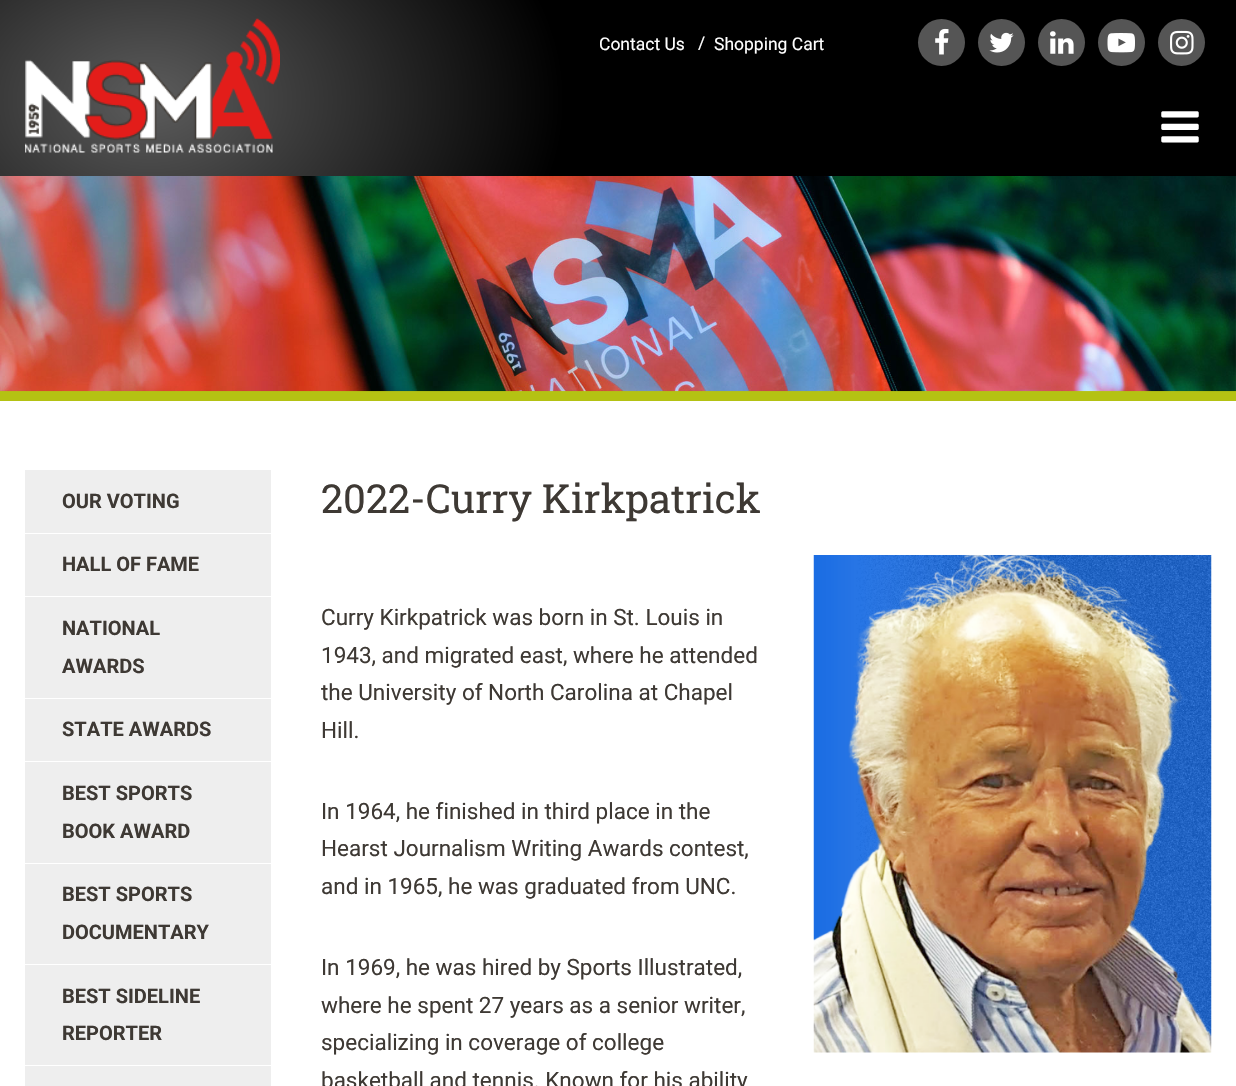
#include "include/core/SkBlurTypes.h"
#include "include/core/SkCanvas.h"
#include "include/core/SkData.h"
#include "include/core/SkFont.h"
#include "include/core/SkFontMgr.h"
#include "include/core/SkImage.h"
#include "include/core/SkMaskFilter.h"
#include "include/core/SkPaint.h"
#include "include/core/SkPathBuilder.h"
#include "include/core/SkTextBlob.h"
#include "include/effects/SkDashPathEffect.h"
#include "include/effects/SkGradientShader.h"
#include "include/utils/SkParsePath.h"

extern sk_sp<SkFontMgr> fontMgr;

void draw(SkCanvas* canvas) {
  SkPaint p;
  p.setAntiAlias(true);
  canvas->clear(SkColorSetRGB(180, 194, 19));
  p.setColor(SK_ColorBLACK);
  canvas->drawRect(SkRect::MakeLTRB(588, 0, 1236, 176), p);
  {
    const SkColor colors[] = {SkColorSetRGB(92, 92, 92), SK_ColorBLACK, SK_ColorBLACK};
    const float stops[] = {0, 0.67f, 0.74f};
    SkMatrix m = SkMatrix::Translate(150, 100).preScale(619, 442);
    p.setShader(SkGradientShader::MakeRadial({0, 0}, 1, colors, stops, 3, SkTileMode::kClamp, 0, &m));
    p.setAlpha(255);
  }
  canvas->drawRect(SkRect::MakeLTRB(0, 0, 588, 176), p);
  canvas->drawImageRect(SkImages::DeferredFromEncodedData(SkData::MakeFromFileName("images/1.png")), SkRect::MakeLTRB(25, 18, 280, 153), SkSamplingOptions());
  p.setShader(nullptr);
  p.setColor(SkColorSetRGB(85, 85, 85));
  canvas->drawCircle(941.5f, 42.5f, 23.5f, p);
  canvas->drawImageRect(SkImages::DeferredFromEncodedData(SkData::MakeFromFileName("images/2.png")), SkRect::MakeLTRB(935, 28, 949, 55), SkSamplingOptions());
  canvas->drawCircle(1001.5f, 42.5f, 23.5f, p);
  canvas->drawImageRect(SkImages::DeferredFromEncodedData(SkData::MakeFromFileName("images/3.png")), SkRect::MakeLTRB(989, 32, 1014, 53), SkSamplingOptions());
  canvas->drawCircle(1061.5f, 42.5f, 23.5f, p);
  canvas->drawImageRect(SkImages::DeferredFromEncodedData(SkData::MakeFromFileName("images/4.png")), SkRect::MakeLTRB(1050, 31, 1074, 54), SkSamplingOptions());
  canvas->drawCircle(1121.5f, 42.5f, 23.5f, p);
  canvas->drawImageRect(SkImages::DeferredFromEncodedData(SkData::MakeFromFileName("images/5.png")), SkRect::MakeLTRB(1107, 33, 1135, 53), SkSamplingOptions());
  canvas->drawCircle(1181.5f, 42.5f, 23.5f, p);
  canvas->drawImageRect(SkImages::DeferredFromEncodedData(SkData::MakeFromFileName("images/6.png")), SkRect::MakeLTRB(1170, 30, 1194, 55), SkSamplingOptions());
  canvas->drawImageRect(SkImages::DeferredFromEncodedData(SkData::MakeFromFileName("images/7.png")), SkRect::MakeLTRB(1161, 111, 1199, 143), SkSamplingOptions());
  canvas->drawImageRect(SkImages::DeferredFromEncodedData(SkData::MakeFromFileName("images/8.png")), SkRect::MakeLTRB(0, 176, 1236, 392), SkSamplingOptions());
  p.setColor(SK_ColorWHITE);
  canvas->drawRect(SkRect::MakeLTRB(0, 401, 1236, 1086), p);
  p.setColor(SkColorSetRGB(238, 238, 238));
  canvas->drawRect(SkRect::MakeLTRB(25, 470, 271, 533), p);
  canvas->drawRect(SkRect::MakeLTRB(25, 534, 271, 698), p);
  p.setColor(SK_ColorWHITE);
  canvas->drawRect(SkRect::MakeLTRB(25, 596, 271, 597), p);
  p.setColor(SkColorSetRGB(238, 238, 238));
  canvas->drawRect(SkRect::MakeLTRB(25, 699, 271, 863), p);
  p.setColor(SK_ColorWHITE);
  canvas->drawRect(SkRect::MakeLTRB(25, 761, 271, 762), p);
  p.setColor(SkColorSetRGB(238, 238, 238));
  canvas->drawRect(SkRect::MakeLTRB(25, 864, 271, 964), p);
  canvas->drawRect(SkRect::MakeLTRB(25, 965, 271, 1065), p);
  canvas->drawRect(SkRect::MakeLTRB(25, 1066, 271, 1086), p);
  canvas->drawImageRect(SkImages::DeferredFromEncodedData(SkData::MakeFromFileName("images/9.png")), SkRect::MakeLTRB(813, 555, 1212, 1053), SkSamplingOptions());
  SkFont font1(fontMgr->matchFamilyStyle("Roboto", SkFontStyle::Normal()), 17.5f);
  font1.setSubpixel(true);
  p.setColor(SK_ColorWHITE);
  canvas->drawString("Contact Us", 599, 50, font1, p);
  canvas->drawString("/", 698, 49, font1, p);
  canvas->drawString("Shopping Cart", 714, 50, font1, p);
  SkFont font2(fontMgr->matchFamilyStyle("Roboto", SkFontStyle::Bold()), 20);
  font2.setSubpixel(true);
  p.setColor(SkColorSetRGB(62, 57, 52));
  canvas->drawString("OUR VOTING", 62, 508, font2, p);
  canvas->drawString("HALL OF FAME", 62, 571, font2, p);
  canvas->drawString("NATIONAL", 62, 635, font2, p);
  canvas->drawString("AWARDS", 62, 673, font2, p);
  canvas->drawString("STATE AWARDS", 62, 736, font2, p);
  canvas->drawString("BEST SPORTS", 62, 800, font2, p);
  canvas->drawString("BOOK AWARD", 62, 838, font2, p);
  canvas->drawString("BEST SPORTS", 62, 901, font2, p);
  canvas->drawString("DOCUMENTARY", 62, 939, font2, p);
  canvas->drawString("BEST SIDELINE", 62, 1003, font2, p);
  canvas->drawString("REPORTER", 62, 1040, font2, p);
  SkFont font3(fontMgr->matchFamilyStyle("Roboto Slab", SkFontStyle::Normal()), 40);
  font3.setSubpixel(true);
  canvas->drawString("2022-Curry Kirkpatrick", 321, 513, font3, p);
  SkFont font4(fontMgr->matchFamilyStyle("Roboto", SkFontStyle::Normal()), 22.5f);
  font4.setSubpixel(true);
  canvas->drawString("Curry Kirkpatrick was born in St. Louis in", 321, 625, font4, p);
  canvas->drawString("1943, and migrated east, where he attended", 321, 663, font4, p);
  canvas->drawString("the University of North Carolina at Chapel", 321, 700, font4, p);
  canvas->drawString("Hill.", 321, 738, font4, p);
  canvas->drawString("In 1964, he finished in third place in the", 321, 819, font4, p);
  canvas->drawString("Hearst Journalism Writing Awards contest,", 321, 856, font4, p);
  canvas->drawString("and in 1965, he was graduated from UNC.", 321, 894, font4, p);
  canvas->drawString("In 1969, he was hired by Sports Illustrated,", 321, 975, font4, p);
  canvas->drawString("where he spent 27 years as a senior writer,", 321, 1013, font4, p);
  canvas->drawString("specializing in coverage of college", 321, 1050, font4, p);
  canvas->drawString("basketball and tennis. Known for his ability", 321, 1088, font4, p);
}
